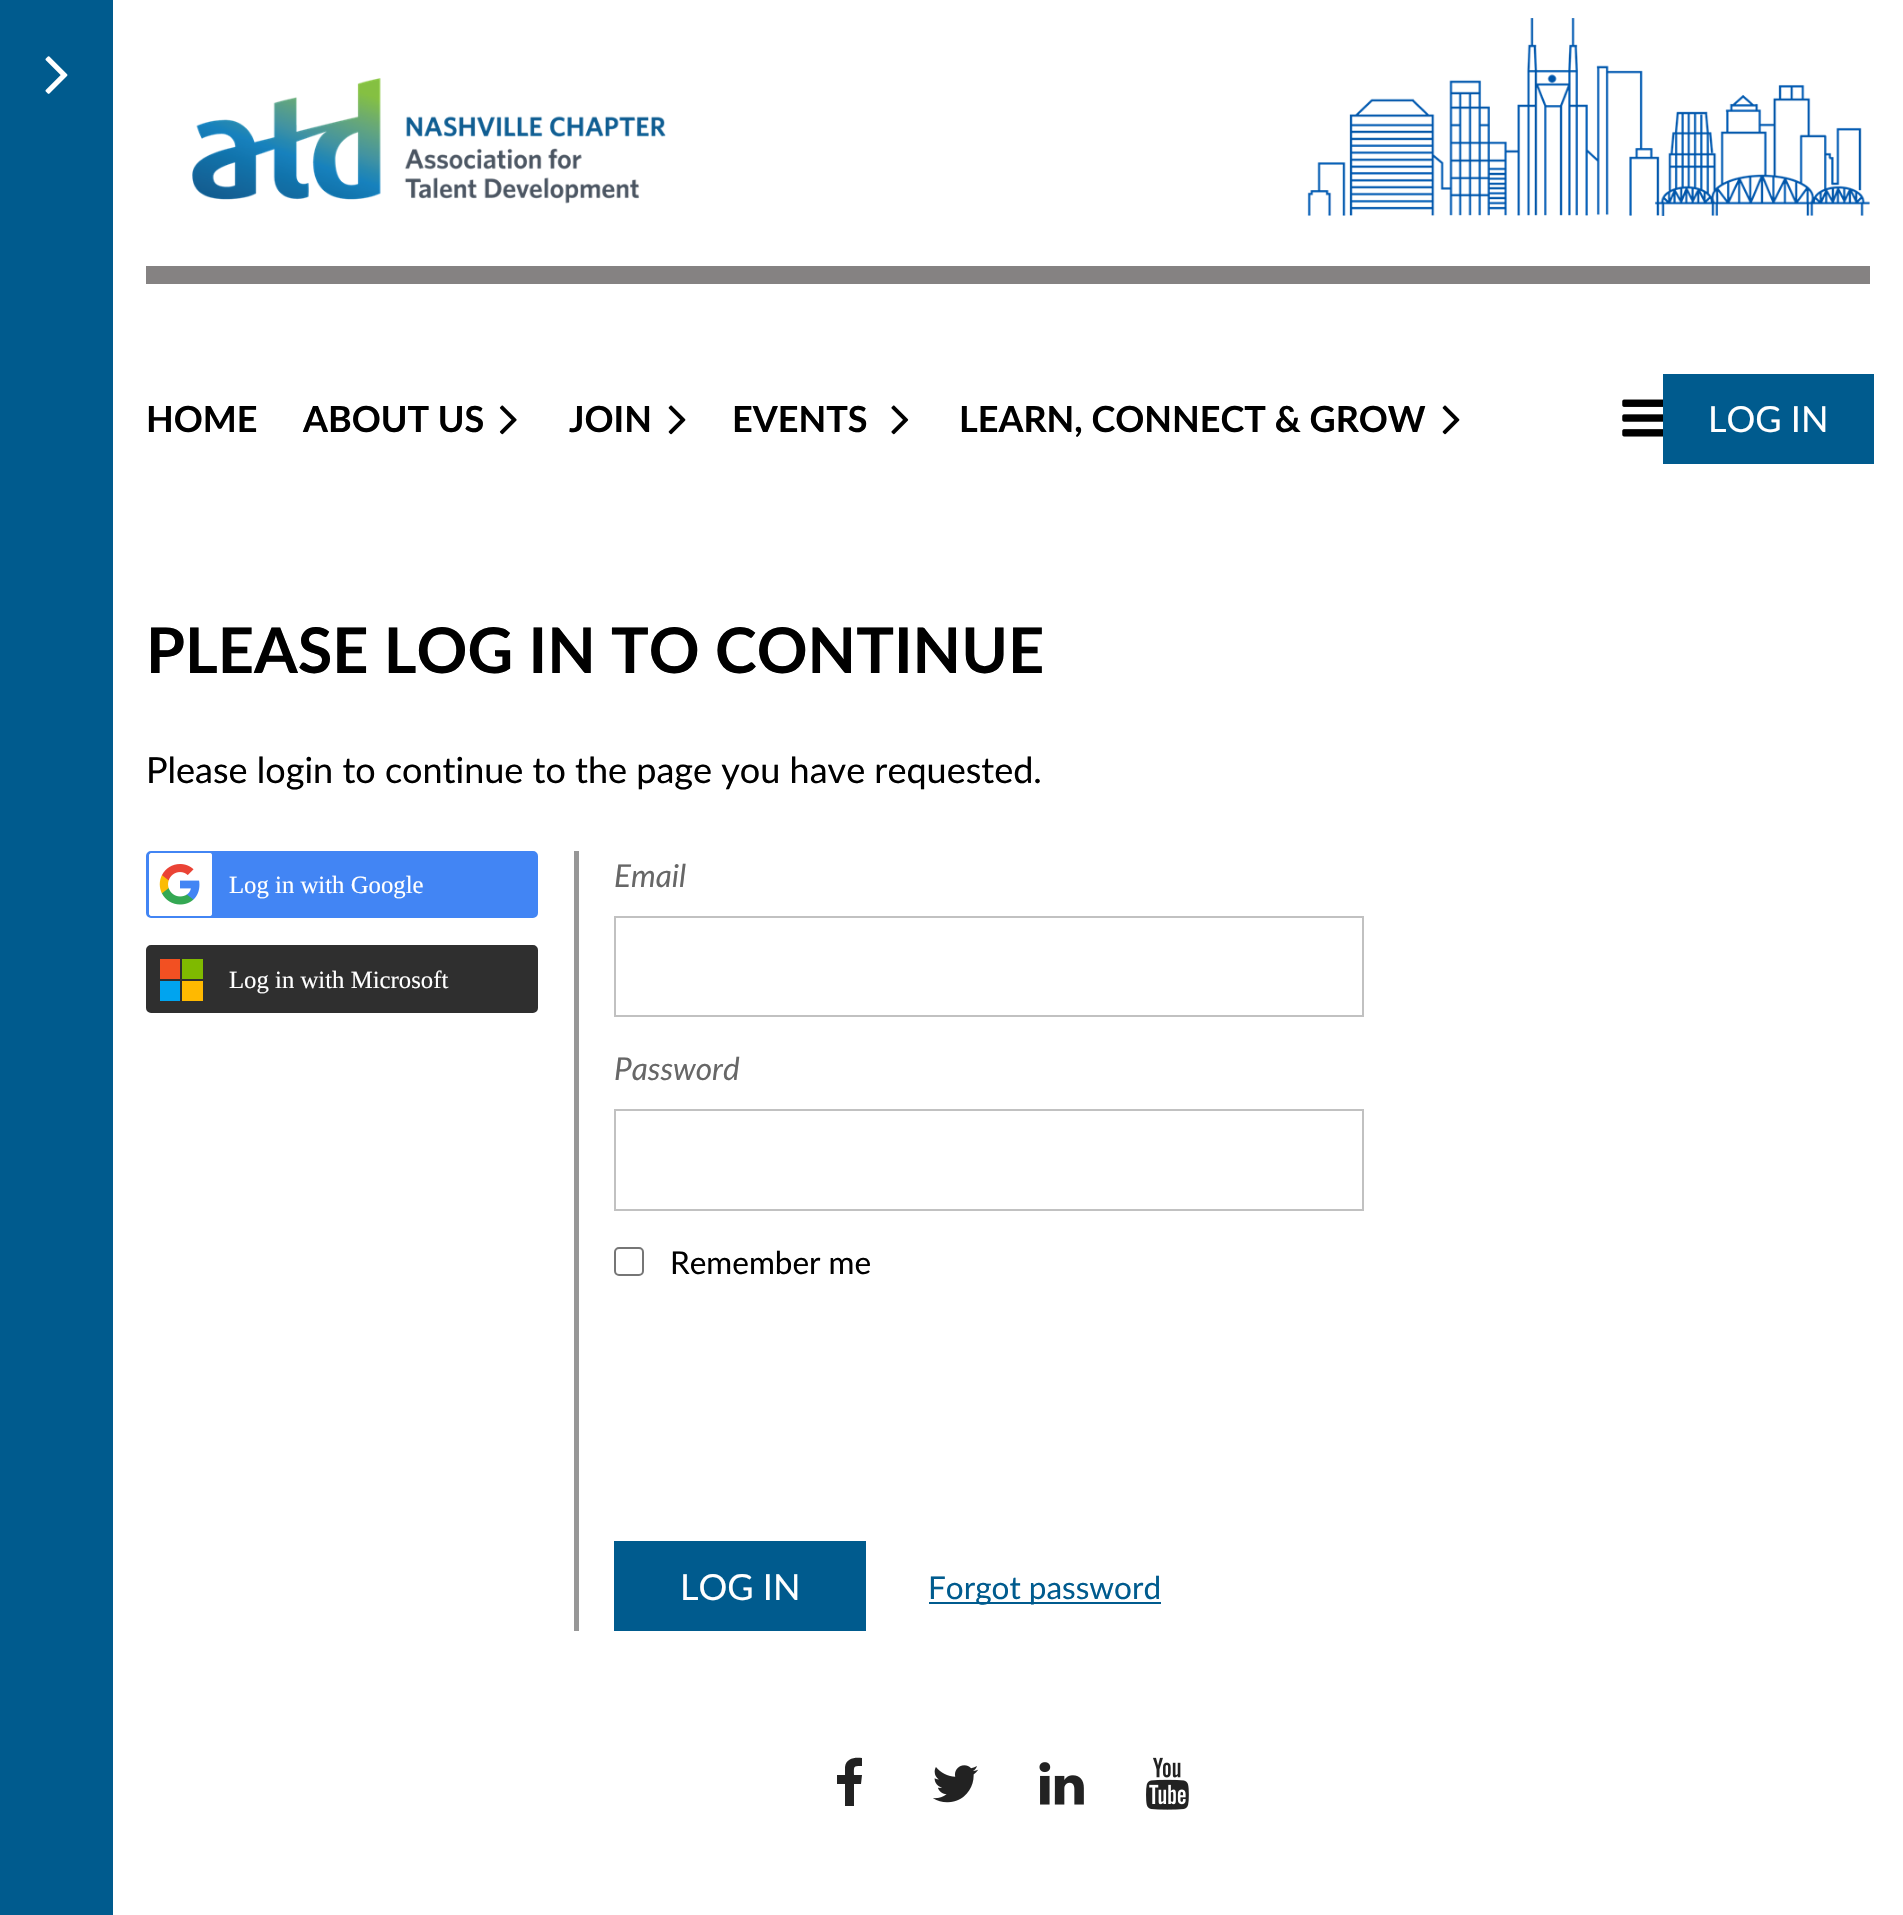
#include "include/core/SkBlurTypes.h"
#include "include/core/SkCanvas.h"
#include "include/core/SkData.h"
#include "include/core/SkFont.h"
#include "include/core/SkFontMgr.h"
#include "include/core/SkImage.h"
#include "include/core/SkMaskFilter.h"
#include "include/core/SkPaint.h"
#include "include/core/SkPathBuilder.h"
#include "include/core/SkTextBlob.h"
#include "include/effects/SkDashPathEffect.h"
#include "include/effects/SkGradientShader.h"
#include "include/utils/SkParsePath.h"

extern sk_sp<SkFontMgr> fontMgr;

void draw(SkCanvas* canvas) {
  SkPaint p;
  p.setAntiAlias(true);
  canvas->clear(SK_ColorWHITE);
  p.setColor(SkColorSetRGB(0, 91, 142));
  canvas->drawRect(SkRect::MakeLTRB(0, 0, 113, 1915), p);
  canvas->drawImageRect(SkImages::DeferredFromEncodedData(SkData::MakeFromFileName("images/1.png")), SkRect::MakeLTRB(45, 56, 68, 94), SkSamplingOptions());
  canvas->drawImageRect(SkImages::DeferredFromEncodedData(SkData::MakeFromFileName("images/2.png")), SkRect::MakeLTRB(192, 18, 1870, 216), SkSamplingOptions());
  p.setColor(SkColorSetRGB(133, 130, 130));
  canvas->drawRect(SkRect::MakeLTRB(146, 266, 1870, 284), p);
  canvas->drawImageRect(SkImages::DeferredFromEncodedData(SkData::MakeFromFileName("images/3.png")), SkRect::MakeLTRB(499, 405, 517, 435), SkSamplingOptions());
  canvas->drawImageRect(SkImages::DeferredFromEncodedData(SkData::MakeFromFileName("images/4.png")), SkRect::MakeLTRB(668, 405, 686, 435), SkSamplingOptions());
  canvas->drawImageRect(SkImages::DeferredFromEncodedData(SkData::MakeFromFileName("images/5.png")), SkRect::MakeLTRB(891, 405, 909, 435), SkSamplingOptions());
  canvas->drawImageRect(SkImages::DeferredFromEncodedData(SkData::MakeFromFileName("images/4.png")), SkRect::MakeLTRB(1442, 405, 1460, 435), SkSamplingOptions());
  canvas->drawImageRect(SkImages::DeferredFromEncodedData(SkData::MakeFromFileName("images/6.png")), SkRect::MakeLTRB(1622, 399, 1663, 437), SkSamplingOptions());
  p.setColor(SkColorSetRGB(0, 91, 142));
  canvas->drawRect(SkRect::MakeLTRB(1663, 374, 1874, 464), p);
  p.setColor(SkColorSetRGB(66, 133, 244));
  canvas->drawRoundRect(SkRect::MakeLTRB(147, 852, 537, 917), 4, 4, p);
  p.setStyle(SkPaint::kStroke_Style);
  p.setStrokeWidth(2);
  canvas->drawRoundRect(SkRect::MakeLTRB(147, 852, 537, 917), 4, 4, p);
  canvas->drawImageRect(SkImages::DeferredFromEncodedData(SkData::MakeFromFileName("images/7.png")), SkRect::MakeLTRB(149, 853, 212, 916), SkSamplingOptions());
  p.setStyle(SkPaint::kFill_Style);
  p.setColor(SkColorSetRGB(47, 47, 47));
  canvas->drawRoundRect(SkRect::MakeLTRB(147, 946, 537, 1012), 4, 4, p);
  p.setStyle(SkPaint::kStroke_Style);
  canvas->drawRoundRect(SkRect::MakeLTRB(147, 946, 537, 1012), 4, 4, p);
  p.setStyle(SkPaint::kFill_Style);
  p.setColor(SkColorSetRGB(242, 80, 34));
  canvas->drawRect(SkRect::MakeLTRB(160, 959, 180, 979), p);
  p.setColor(SkColorSetRGB(0, 164, 239));
  canvas->drawRect(SkRect::MakeLTRB(160, 981, 180, 1001), p);
  p.setColor(SkColorSetRGB(127, 186, 0));
  canvas->drawRect(SkRect::MakeLTRB(182, 959, 203, 979), p);
  p.setColor(SkColorSetRGB(255, 185, 0));
  canvas->drawRect(SkRect::MakeLTRB(182, 981, 203, 1001), p);
  p.setColor(SkColorSetRGB(151, 151, 151));
  canvas->drawRect(SkRect::MakeLTRB(574, 851, 579, 1631), p);
  p.setStyle(SkPaint::kStroke_Style);
  p.setColor(SkColorSetRGB(193, 193, 193));
  canvas->drawRect(SkRect::MakeLTRB(615, 917, 1363, 1016), p);
  canvas->drawRect(SkRect::MakeLTRB(615, 1110, 1363, 1210), p);
  p.setColor(SkColorSetRGB(118, 118, 118));
  canvas->drawRoundRect(SkRect::MakeLTRB(615, 1248, 643, 1275), 4, 4, p);
  p.setStyle(SkPaint::kFill_Style);
  p.setColor(SkColorSetRGB(0, 91, 142));
  canvas->drawRect(SkRect::MakeLTRB(614, 1541, 866, 1631), p);
  canvas->drawRect(SkRect::MakeLTRB(929, 1602, 1161, 1604), p);
  p.setColor(SkColorSetRGB(34, 34, 34));
  canvas->drawPath(SkPathBuilder().moveTo(862, 1758).lineTo(862, 1766).cubicTo(853, 1766, 854, 1766, 854, 1775).lineTo(862, 1775).lineTo(861, 1784).lineTo(854, 1784).lineTo(854, 1806).lineTo(845, 1806).lineTo(845, 1784).lineTo(837, 1784).lineTo(837, 1775).lineTo(845, 1775).lineTo(845, 1767).cubicTo(846, 1758, 855, 1757, 862, 1758).close().detach(), p);
  canvas->drawImageRect(SkImages::DeferredFromEncodedData(SkData::MakeFromFileName("images/8.png")), SkRect::MakeLTRB(933, 1765, 979, 1803), SkSamplingOptions());
  canvas->drawImageRect(SkImages::DeferredFromEncodedData(SkData::MakeFromFileName("images/9.png")), SkRect::MakeLTRB(1039, 1762, 1084, 1805), SkSamplingOptions());
  canvas->drawImageRect(SkImages::DeferredFromEncodedData(SkData::MakeFromFileName("images/10.png")), SkRect::MakeLTRB(1146, 1757, 1189, 1810), SkSamplingOptions());
  SkFont font1(fontMgr->matchFamilyStyle("Lato", SkFontStyle::Bold()), 36);
  font1.setSubpixel(true);
  p.setColor(SK_ColorBLACK);
  canvas->drawString("HOME", 146, 432, font1, p);
  canvas->drawString("ABOUT US", 303, 432, font1, p);
  canvas->drawString("JOIN", 569, 432, font1, p);
  canvas->drawString("EVENTS", 732, 432, font1, p);
  canvas->drawString("LEARN, CONNECT & GROW", 959, 432, font1, p);
  SkFont font2(fontMgr->matchFamilyStyle("Lato", SkFontStyle::Normal()), 36);
  font2.setSubpixel(true);
  p.setColor(SK_ColorWHITE);
  canvas->drawString("LOG IN", 1708, 432, font2, p);
  SkFont font3(fontMgr->matchFamilyStyle("Lato", SkFontStyle::Bold()), 63);
  font3.setSubpixel(true);
  p.setColor(SK_ColorBLACK);
  canvas->drawString("PLEASE LOG IN TO CONTINUE", 146, 673, font3, p);
  canvas->drawString("Please login to continue to the page you have requested.", 146, 783, font2, p);
  SkFont font4(fontMgr->matchFamilyStyle("Liberation Serif", SkFontStyle::Normal()), 24.75f);
  font4.setSubpixel(true);
  p.setColor(SK_ColorWHITE);
  canvas->drawString("Log in with Google", 229, 893, font4, p);
  canvas->drawString("Log in with Microsoft", 229, 988, font4, p);
  SkFont font5(fontMgr->matchFamilyStyle("Lato", SkFontStyle::Italic()), 31.5f);
  font5.setSubpixel(true);
  p.setColor(SkColorSetRGB(103, 103, 103));
  canvas->drawString("Email", 614, 887, font5, p);
  canvas->drawString("Password", 614, 1080, font5, p);
  SkFont font6(fontMgr->matchFamilyStyle("Lato", SkFontStyle::Normal()), 31.5f);
  font6.setSubpixel(true);
  p.setColor(SK_ColorBLACK);
  canvas->drawString("Remember me", 670, 1274, font6, p);
  p.setColor(SK_ColorWHITE);
  canvas->drawString("LOG IN", 680, 1600, font2, p);
  p.setColor(SkColorSetRGB(0, 91, 142));
  canvas->drawString("Forgot password", 928, 1599, font6, p);
}
